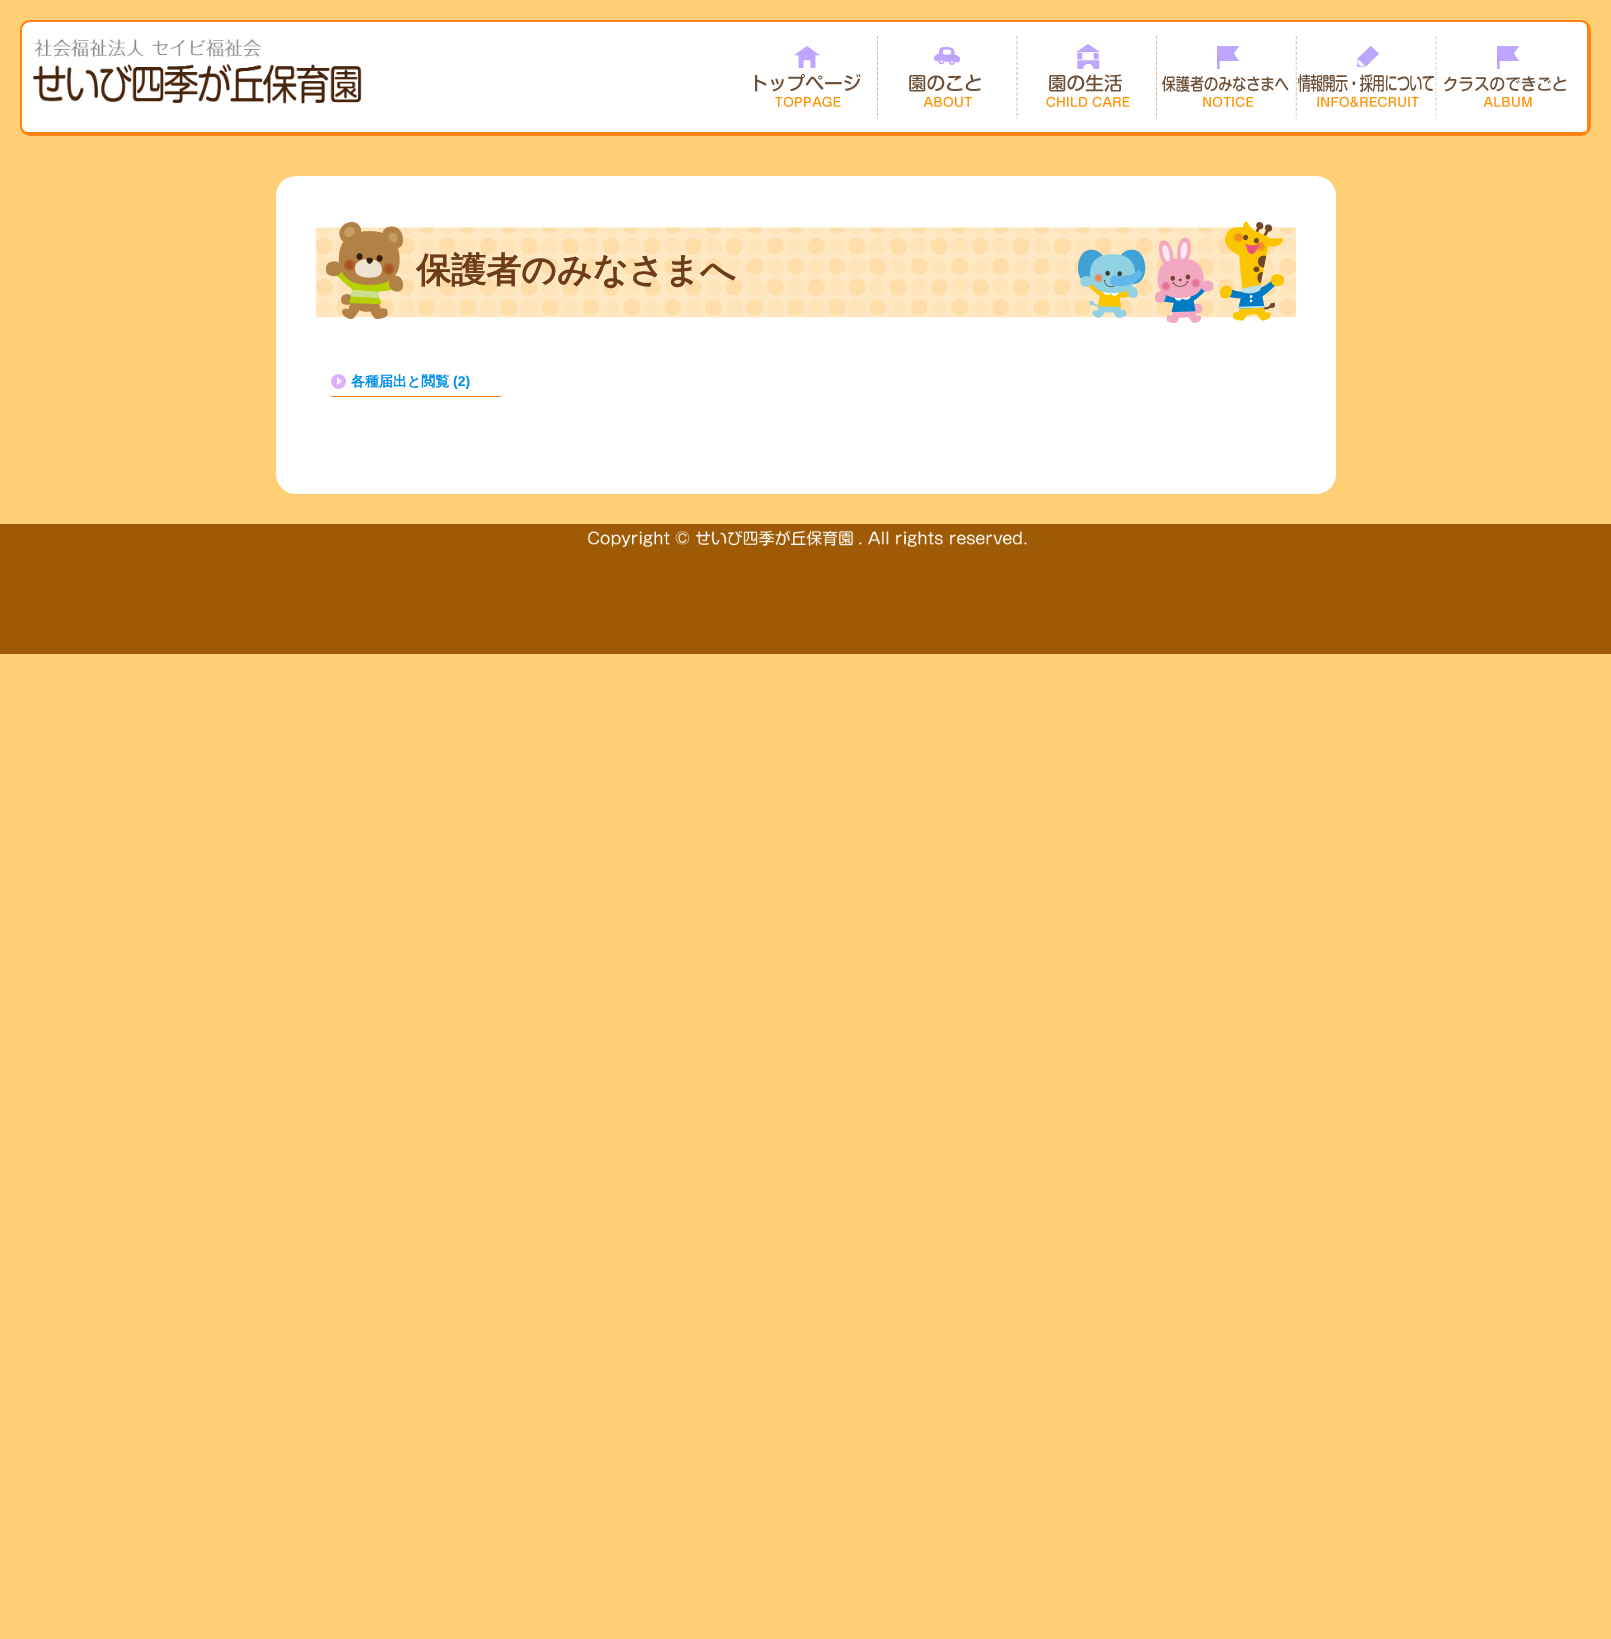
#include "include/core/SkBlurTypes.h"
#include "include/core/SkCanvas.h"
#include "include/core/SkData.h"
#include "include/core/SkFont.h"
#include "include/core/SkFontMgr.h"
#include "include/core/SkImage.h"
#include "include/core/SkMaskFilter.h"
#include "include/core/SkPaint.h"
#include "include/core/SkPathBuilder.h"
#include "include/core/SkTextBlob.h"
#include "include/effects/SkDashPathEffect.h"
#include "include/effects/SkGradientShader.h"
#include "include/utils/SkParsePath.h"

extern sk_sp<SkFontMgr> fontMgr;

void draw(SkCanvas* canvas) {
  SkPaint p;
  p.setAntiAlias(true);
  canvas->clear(SkColorSetRGB(255, 207, 117));
  p.setColor(SK_ColorWHITE);
  canvas->drawPath(SkPathBuilder().moveTo(30, 22).lineTo(1581, 22).cubicTo(1584, 22, 1587, 26, 1587, 30).lineTo(1587, 126).cubicTo(1587, 129, 1584, 132, 1581, 132).lineTo(30, 132).cubicTo(26, 132, 22, 129, 22, 126).lineTo(22, 30).cubicTo(22, 26, 26, 22, 30, 22).close().detach(), p);
  p.setStyle(SkPaint::kStroke_Style);
  p.setStrokeWidth(2);
  p.setColor(SkColorSetRGB(255, 130, 22));
  canvas->drawRoundRect(SkRect::MakeLTRB(21, 21, 1590, 135), 9, 9, p);
  p.setStyle(SkPaint::kFill_Style);
  canvas->drawRect(SkRect::MakeLTRB(1587, 25, 1589, 131), p);
  canvas->drawRect(SkRect::MakeLTRB(25, 132, 1586, 134), p);
  canvas->drawImageRect(SkImages::DeferredFromEncodedData(SkData::MakeFromFileName("images/1.png")), SkRect::MakeLTRB(32, 39, 362, 104), SkSamplingOptions());
  canvas->drawImageRect(SkImages::DeferredFromEncodedData(SkData::MakeFromFileName("images/2.png")), SkRect::MakeLTRB(877, 35, 1437, 119), SkSamplingOptions());
  canvas->drawImageRect(SkImages::DeferredFromEncodedData(SkData::MakeFromFileName("images/3.png")), SkRect::MakeLTRB(755, 46, 861, 107), SkSamplingOptions());
  canvas->drawImageRect(SkImages::DeferredFromEncodedData(SkData::MakeFromFileName("images/4.png")), SkRect::MakeLTRB(909, 47, 981, 107), SkSamplingOptions());
  canvas->drawImageRect(SkImages::DeferredFromEncodedData(SkData::MakeFromFileName("images/5.png")), SkRect::MakeLTRB(1046, 44, 1130, 107), SkSamplingOptions());
  canvas->drawImageRect(SkImages::DeferredFromEncodedData(SkData::MakeFromFileName("images/6.png")), SkRect::MakeLTRB(1162, 46, 1289, 107), SkSamplingOptions());
  canvas->drawImageRect(SkImages::DeferredFromEncodedData(SkData::MakeFromFileName("images/7.png")), SkRect::MakeLTRB(1298, 46, 1434, 107), SkSamplingOptions());
  canvas->drawImageRect(SkImages::DeferredFromEncodedData(SkData::MakeFromFileName("images/8.png")), SkRect::MakeLTRB(1444, 46, 1566, 107), SkSamplingOptions());
  p.setColor(SK_ColorWHITE);
  canvas->drawRoundRect(SkRect::MakeLTRB(276, 176, 1336, 494), 20, 20, p);
  canvas->drawImageRect(SkImages::DeferredFromEncodedData(SkData::MakeFromFileName("images/9.png")), SkRect::MakeLTRB(316, 221, 1296, 323), SkSamplingOptions());
  p.setColor(SkColorSetRGB(255, 130, 22));
  canvas->drawRect(SkRect::MakeLTRB(331, 396, 501, 397), p);
  p.setColor(SkColorSetRGB(219, 177, 255));
  canvas->drawCircle(338.5f, 381.5f, 7.5f, p);
  p.setColor(SK_ColorWHITE);
  canvas->drawPath(SkPathBuilder().moveTo(337, 385).lineTo(337, 377).lineTo(342, 381).close().detach(), p);
  p.setColor(SkColorSetRGB(158, 90, 4));
  canvas->drawRect(SkRect::MakeLTRB(0, 524, 1611, 654), p);
  canvas->drawImageRect(SkImages::DeferredFromEncodedData(SkData::MakeFromFileName("images/10.png")), SkRect::MakeLTRB(587, 530, 1027, 548), SkSamplingOptions());
  SkFont font1(fontMgr->matchFamilyStyle("WenQuanYi Zen Hei", SkFontStyle::Bold()), 35);
  font1.setSubpixel(true);
  p.setColor(SkColorSetRGB(111, 60, 26));
  canvas->drawString("保護者のみなさまへ", 416, 282, font1, p);
  SkFont font2(fontMgr->matchFamilyStyle("WenQuanYi Zen Hei", SkFontStyle::Bold()), 14);
  font2.setSubpixel(true);
  p.setColor(SkColorSetRGB(0, 144, 236));
  canvas->drawString("各種届出と閲覧", 351, 386, font2, p);
  SkFont font3(fontMgr->matchFamilyStyle("Liberation Sans", SkFontStyle::Bold()), 14);
  font3.setSubpixel(true);
  canvas->drawString("(2)", 453, 386, font3, p);
}
